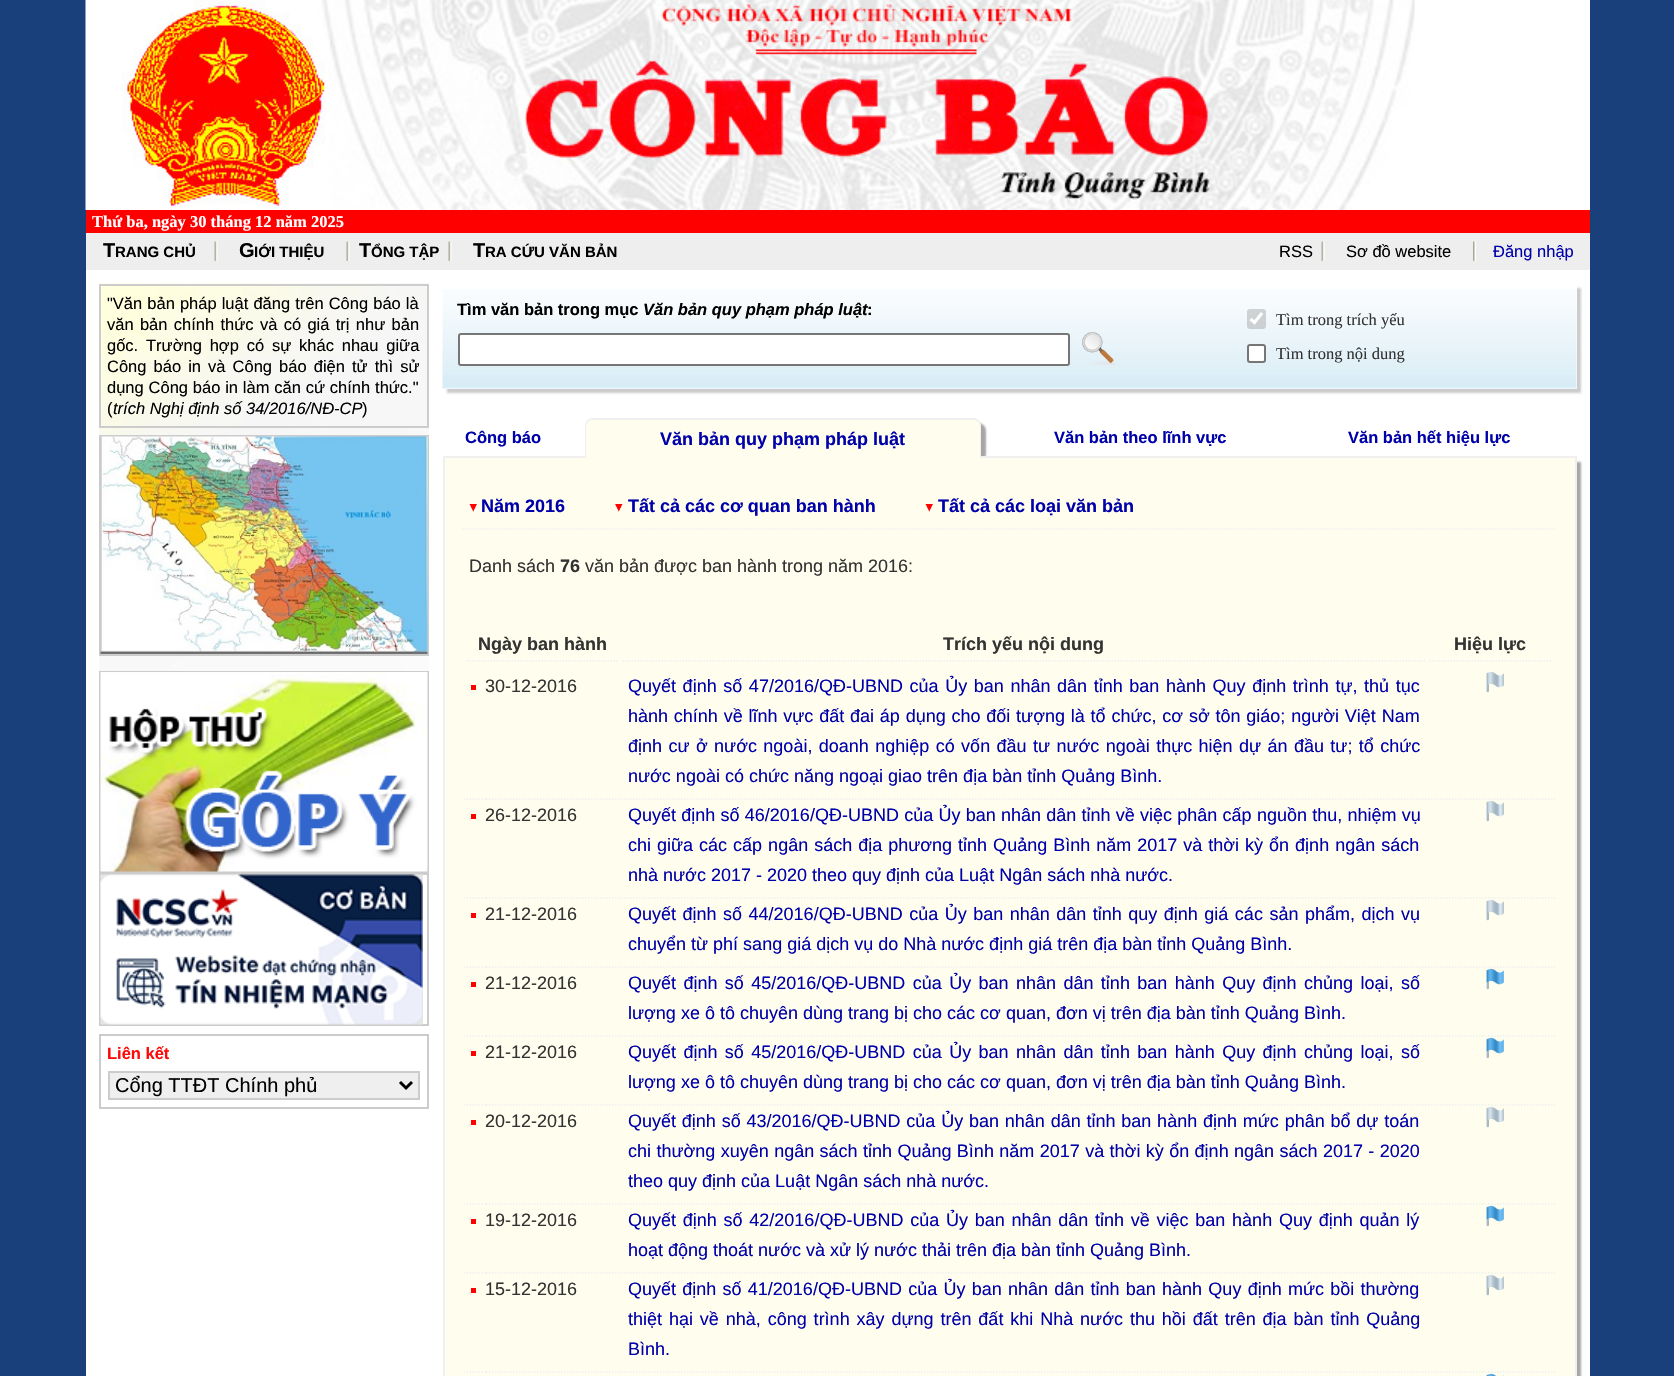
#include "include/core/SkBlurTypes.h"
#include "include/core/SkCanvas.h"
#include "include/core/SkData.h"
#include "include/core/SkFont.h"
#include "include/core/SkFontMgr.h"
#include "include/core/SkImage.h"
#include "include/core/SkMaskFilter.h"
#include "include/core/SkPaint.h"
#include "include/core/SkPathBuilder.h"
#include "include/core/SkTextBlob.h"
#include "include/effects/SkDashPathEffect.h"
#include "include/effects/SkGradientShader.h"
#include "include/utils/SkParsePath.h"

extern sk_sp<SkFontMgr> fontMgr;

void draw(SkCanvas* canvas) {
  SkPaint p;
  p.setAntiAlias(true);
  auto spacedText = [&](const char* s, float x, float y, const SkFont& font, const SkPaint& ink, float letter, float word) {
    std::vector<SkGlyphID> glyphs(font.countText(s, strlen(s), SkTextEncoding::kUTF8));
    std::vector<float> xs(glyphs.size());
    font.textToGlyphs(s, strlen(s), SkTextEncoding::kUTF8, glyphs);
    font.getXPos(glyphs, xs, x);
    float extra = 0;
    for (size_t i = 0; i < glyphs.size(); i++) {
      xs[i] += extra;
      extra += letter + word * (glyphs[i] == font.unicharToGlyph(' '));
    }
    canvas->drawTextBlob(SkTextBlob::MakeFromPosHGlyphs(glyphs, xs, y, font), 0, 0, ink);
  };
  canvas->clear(SkColorSetRGB(25, 64, 122));
  p.setColor(SK_ColorWHITE);
  canvas->drawRect(SkRect::MakeLTRB(86, 0, 1590, 1376), p);
  canvas->drawImageRect(SkImages::DeferredFromEncodedData(SkData::MakeFromFileName("images/1.png")), SkRect::MakeLTRB(85, 0, 1415, 210), SkSamplingOptions());
  p.setColor(SkColorSetRGB(255, 0, 0));
  canvas->drawRect(SkRect::MakeLTRB(86, 210, 1590, 233), p);
  p.setColor(SkColorSetRGB(238, 238, 238));
  canvas->drawRect(SkRect::MakeLTRB(86, 233, 1590, 270), p);
  canvas->drawImageRect(SkImages::DeferredFromEncodedData(SkData::MakeFromFileName("images/2.png")), SkRect::MakeLTRB(214, 241, 218, 261), SkSamplingOptions());
  canvas->drawImageRect(SkImages::DeferredFromEncodedData(SkData::MakeFromFileName("images/2.png")), SkRect::MakeLTRB(346, 241, 350, 261), SkSamplingOptions());
  canvas->drawImageRect(SkImages::DeferredFromEncodedData(SkData::MakeFromFileName("images/2.png")), SkRect::MakeLTRB(448, 241, 452, 261), SkSamplingOptions());
  canvas->drawImageRect(SkImages::DeferredFromEncodedData(SkData::MakeFromFileName("images/2.png")), SkRect::MakeLTRB(1321, 241, 1325, 261), SkSamplingOptions());
  canvas->drawImageRect(SkImages::DeferredFromEncodedData(SkData::MakeFromFileName("images/3.png")), SkRect::MakeLTRB(1473, 241, 1476, 261), SkSamplingOptions());
  canvas->drawImageRect(SkImages::DeferredFromEncodedData(SkData::MakeFromFileName("images/4.png")), SkRect::MakeLTRB(99, 283, 429, 671), SkSamplingOptions());
  p.setStyle(SkPaint::kStroke_Style);
  p.setStrokeWidth(2);
  p.setColor(SkColorSetRGB(204, 204, 204));
  canvas->drawRect(SkRect::MakeLTRB(100, 285, 428, 427), p);
  canvas->drawRect(SkRect::MakeLTRB(100, 436, 428, 655), p);
  canvas->drawImageRect(SkImages::DeferredFromEncodedData(SkData::MakeFromFileName("images/5.png")), SkRect::MakeLTRB(100, 436, 428, 654), SkSamplingOptions());
  canvas->drawRect(SkRect::MakeLTRB(100, 672, 428, 872), p);
  canvas->drawImageRect(SkImages::DeferredFromEncodedData(SkData::MakeFromFileName("images/6.png")), SkRect::MakeLTRB(100, 672, 428, 872), SkSamplingOptions());
  canvas->drawRect(SkRect::MakeLTRB(100, 874, 428, 1025), p);
  canvas->drawImageRect(SkImages::DeferredFromEncodedData(SkData::MakeFromFileName("images/7.png")), SkRect::MakeLTRB(100, 874, 423, 1025), SkSamplingOptions());
  canvas->drawRect(SkRect::MakeLTRB(100, 1035, 428, 1108), p);
  p.setStyle(SkPaint::kFill_Style);
  p.setColor(SkColorSetRGB(239, 239, 239));
  canvas->drawRect(SkRect::MakeLTRB(109, 1072, 419, 1099), p);
  p.setStyle(SkPaint::kStroke_Style);
  p.setColor(SkColorSetRGB(204, 204, 204));
  canvas->drawRect(SkRect::MakeLTRB(109, 1072, 419, 1099), p);
  p.setStrokeWidth(3);
  p.setColor(SK_ColorBLACK);
  canvas->drawPath(SkPathBuilder().moveTo(400, 1082).lineTo(406, 1088).lineTo(412, 1082).detach(), p);
  p.setStyle(SkPaint::kFill_Style);
  p.setColor(SkColorSetRGB(204, 204, 204));
  p.setMaskFilter(SkMaskFilter::MakeBlur(kNormal_SkBlurStyle, 1));
  canvas->drawRect(SkRect::MakeLTRB(447, 288, 1581, 393), p);
  p.setMaskFilter(nullptr);
  p.setColor(SK_ColorWHITE);
  canvas->drawRect(SkRect::MakeLTRB(445, 286, 1577, 389), p);
  canvas->drawImageRect(SkImages::DeferredFromEncodedData(SkData::MakeFromFileName("images/8.png")), SkRect::MakeLTRB(442, 289, 1577, 389), SkSamplingOptions());
  canvas->drawRoundRect(SkRect::MakeLTRB(459, 334, 1069, 365), 2, 2, p);
  p.setStyle(SkPaint::kStroke_Style);
  p.setStrokeWidth(2);
  p.setColor(SkColorSetRGB(118, 118, 118));
  canvas->drawRoundRect(SkRect::MakeLTRB(459, 334, 1069, 365), 2, 2, p);
  canvas->drawImageRect(SkImages::DeferredFromEncodedData(SkData::MakeFromFileName("images/9.png")), SkRect::MakeLTRB(1082, 332, 1116, 365), SkSamplingOptions());
  p.setStyle(SkPaint::kFill_Style);
  p.setColor(SkColorSetARGB(77, 118, 118, 118));
  canvas->drawRoundRect(SkRect::MakeLTRB(1247, 309, 1266, 329), 3, 3, p);
  p.setStyle(SkPaint::kStroke_Style);
  p.setStrokeWidth(3.1f);
  p.setColor(SK_ColorWHITE);
  canvas->drawPath(SkPathBuilder().moveTo(1250.5f, 319).lineTo(1254.5f, 322.5f).lineTo(1262, 313).detach(), p);
  p.setStyle(SkPaint::kFill_Style);
  canvas->drawRoundRect(SkRect::MakeLTRB(1248, 345, 1265, 362), 2, 2, p);
  p.setStyle(SkPaint::kStroke_Style);
  p.setStrokeWidth(2);
  p.setColor(SkColorSetRGB(118, 118, 118));
  canvas->drawRoundRect(SkRect::MakeLTRB(1248, 345, 1265, 362), 2, 2, p);
  p.setStyle(SkPaint::kFill_Style);
  p.setColor(SkColorSetRGB(240, 240, 240));
  canvas->drawRect(SkRect::MakeLTRB(443, 456, 585, 458), p);
  p.setColor(SkColorSetRGB(166, 166, 166));
  p.setMaskFilter(SkMaskFilter::MakeBlur(kNormal_SkBlurStyle, 1));
  canvas->drawRoundRect(SkRect::MakeLTRB(590, 423, 986, 462), 8, 8, p);
  p.setMaskFilter(nullptr);
  p.setColor(SkColorSetRGB(255, 254, 238));
  canvas->drawPath(SkPathBuilder().moveTo(593, 419).lineTo(973, 419).cubicTo(977.5f, 419, 981, 422.5f, 981, 427).lineTo(981, 458).lineTo(585, 458).lineTo(585, 427).cubicTo(585, 422.5f, 588.5f, 419, 593, 419).close().detach(), p);
  p.setColor(SkColorSetRGB(240, 240, 240));
  canvas->drawPath(SkPathBuilder(SkPathFillType::kEvenOdd).moveTo(592, 418).lineTo(974, 418).cubicTo(978, 418, 981, 422, 981, 426).lineTo(981, 458).lineTo(585, 458).lineTo(585, 426).cubicTo(585, 422, 588, 418, 592, 418).close().moveTo(592, 420).lineTo(974, 420).cubicTo(977, 420, 980, 423, 980, 426).lineTo(980, 458).lineTo(586, 458).lineTo(586, 426).cubicTo(586, 423, 589, 420, 592, 420).close().detach(), p);
  canvas->drawRect(SkRect::MakeLTRB(981, 456, 1577, 458), p);
  p.setColor(SkColorSetRGB(166, 166, 166));
  p.setMaskFilter(SkMaskFilter::MakeBlur(kNormal_SkBlurStyle, 1));
  canvas->drawRect(SkRect::MakeLTRB(447, 462, 1581, 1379), p);
  p.setMaskFilter(nullptr);
  p.setColor(SkColorSetRGB(255, 254, 238));
  canvas->drawRect(SkRect::MakeLTRB(445, 458, 1575, 1376), p);
  p.setColor(SkColorSetRGB(240, 240, 240));
  canvas->drawRect(SkRect::MakeLTRB(1575, 458, 1577, 1376), p);
  canvas->drawRect(SkRect::MakeLTRB(443, 458, 445, 1376), p);
  p.setStyle(SkPaint::kStroke_Style);
  p.setStrokeWidth(1.5f);
  p.setPathEffect(SkDashPathEffect::Make({{1.5f, 1.5f}}, 0));
  canvas->drawPath(SkPathBuilder().moveTo(462, 529).lineTo(1557, 529).detach(), p);
  p.setPathEffect(nullptr);
  canvas->drawImageRect(SkImages::DeferredFromEncodedData(SkData::MakeFromFileName("images/10.png")), SkRect::MakeLTRB(469, 504, 477, 512), SkSamplingOptions());
  canvas->drawImageRect(SkImages::DeferredFromEncodedData(SkData::MakeFromFileName("images/11.png")), SkRect::MakeLTRB(615, 504, 623, 512), SkSamplingOptions());
  canvas->drawImageRect(SkImages::DeferredFromEncodedData(SkData::MakeFromFileName("images/10.png")), SkRect::MakeLTRB(925, 504, 933, 512), SkSamplingOptions());
  p.setColor(SkColorSetRGB(238, 238, 238));
  p.setPathEffect(SkDashPathEffect::Make({{1.5f, 1.5f}}, 0));
  canvas->drawPath(SkPathBuilder().moveTo(466.5f, 661).lineTo(619.5f, 661).detach(), p);
  p.setPathEffect(nullptr);
  p.setPathEffect(SkDashPathEffect::Make({{1.5f, 1.5f}}, 0));
  canvas->drawPath(SkPathBuilder().moveTo(622.5f, 661).lineTo(1426.5f, 661).detach(), p);
  p.setPathEffect(nullptr);
  p.setPathEffect(SkDashPathEffect::Make({{1.5f, 1.5f}}, 0));
  canvas->drawPath(SkPathBuilder().moveTo(1429.5f, 661).lineTo(1552.5f, 661).detach(), p);
  p.setPathEffect(nullptr);
  p.setPathEffect(SkDashPathEffect::Make({{1.5f, 1.5f}}, 0));
  canvas->drawPath(SkPathBuilder().moveTo(463.5f, 799).lineTo(486, 799).detach(), p);
  p.setPathEffect(nullptr);
  p.setStyle(SkPaint::kFill_Style);
  p.setColor(SkColorSetRGB(255, 0, 0));
  canvas->drawRect(SkRect::MakeLTRB(471, 685, 476, 690), p);
  p.setStyle(SkPaint::kStroke_Style);
  p.setColor(SkColorSetRGB(238, 238, 238));
  p.setPathEffect(SkDashPathEffect::Make({{1.5f, 1.5f}}, 0));
  canvas->drawPath(SkPathBuilder().moveTo(486, 799).lineTo(621, 799).detach(), p);
  p.setPathEffect(nullptr);
  p.setPathEffect(SkDashPathEffect::Make({{1.5f, 1.5f}}, 0));
  canvas->drawPath(SkPathBuilder().moveTo(621, 799).lineTo(1428, 799).detach(), p);
  p.setPathEffect(nullptr);
  p.setPathEffect(SkDashPathEffect::Make({{1.5f, 1.5f}}, 0));
  canvas->drawPath(SkPathBuilder().moveTo(1428, 799).lineTo(1555.5f, 799).detach(), p);
  p.setPathEffect(nullptr);
  canvas->drawImageRect(SkImages::DeferredFromEncodedData(SkData::MakeFromFileName("images/12.png")), SkRect::MakeLTRB(1486, 671, 1504, 693), SkSamplingOptions());
  p.setPathEffect(SkDashPathEffect::Make({{1.5f, 1.5f}}, 0));
  canvas->drawPath(SkPathBuilder().moveTo(463.5f, 898).lineTo(486, 898).detach(), p);
  p.setPathEffect(nullptr);
  p.setStyle(SkPaint::kFill_Style);
  p.setColor(SkColorSetRGB(255, 0, 0));
  canvas->drawRect(SkRect::MakeLTRB(471, 814, 476, 819), p);
  p.setStyle(SkPaint::kStroke_Style);
  p.setColor(SkColorSetRGB(238, 238, 238));
  p.setPathEffect(SkDashPathEffect::Make({{1.5f, 1.5f}}, 0));
  canvas->drawPath(SkPathBuilder().moveTo(486, 898).lineTo(621, 898).detach(), p);
  p.setPathEffect(nullptr);
  p.setPathEffect(SkDashPathEffect::Make({{1.5f, 1.5f}}, 0));
  canvas->drawPath(SkPathBuilder().moveTo(621, 898).lineTo(1428, 898).detach(), p);
  p.setPathEffect(nullptr);
  p.setPathEffect(SkDashPathEffect::Make({{1.5f, 1.5f}}, 0));
  canvas->drawPath(SkPathBuilder().moveTo(1428, 898).lineTo(1555.5f, 898).detach(), p);
  p.setPathEffect(nullptr);
  canvas->drawImageRect(SkImages::DeferredFromEncodedData(SkData::MakeFromFileName("images/12.png")), SkRect::MakeLTRB(1486, 800, 1504, 822), SkSamplingOptions());
  p.setPathEffect(SkDashPathEffect::Make({{1.5f, 1.5f}}, 0));
  canvas->drawPath(SkPathBuilder().moveTo(463.5f, 967).lineTo(486, 967).detach(), p);
  p.setPathEffect(nullptr);
  p.setStyle(SkPaint::kFill_Style);
  p.setColor(SkColorSetRGB(255, 0, 0));
  canvas->drawRect(SkRect::MakeLTRB(471, 913, 476, 918), p);
  p.setStyle(SkPaint::kStroke_Style);
  p.setColor(SkColorSetRGB(238, 238, 238));
  p.setPathEffect(SkDashPathEffect::Make({{1.5f, 1.5f}}, 0));
  canvas->drawPath(SkPathBuilder().moveTo(486, 967).lineTo(621, 967).detach(), p);
  p.setPathEffect(nullptr);
  p.setPathEffect(SkDashPathEffect::Make({{1.5f, 1.5f}}, 0));
  canvas->drawPath(SkPathBuilder().moveTo(621, 967).lineTo(1428, 967).detach(), p);
  p.setPathEffect(nullptr);
  p.setPathEffect(SkDashPathEffect::Make({{1.5f, 1.5f}}, 0));
  canvas->drawPath(SkPathBuilder().moveTo(1428, 967).lineTo(1555.5f, 967).detach(), p);
  p.setPathEffect(nullptr);
  canvas->drawImageRect(SkImages::DeferredFromEncodedData(SkData::MakeFromFileName("images/12.png")), SkRect::MakeLTRB(1486, 899, 1504, 921), SkSamplingOptions());
  p.setPathEffect(SkDashPathEffect::Make({{1.5f, 1.5f}}, 0));
  canvas->drawPath(SkPathBuilder().moveTo(463.5f, 1036).lineTo(486, 1036).detach(), p);
  p.setPathEffect(nullptr);
  p.setStyle(SkPaint::kFill_Style);
  p.setColor(SkColorSetRGB(255, 0, 0));
  canvas->drawRect(SkRect::MakeLTRB(471, 982, 476, 987), p);
  p.setStyle(SkPaint::kStroke_Style);
  p.setColor(SkColorSetRGB(238, 238, 238));
  p.setPathEffect(SkDashPathEffect::Make({{1.5f, 1.5f}}, 0));
  canvas->drawPath(SkPathBuilder().moveTo(486, 1036).lineTo(621, 1036).detach(), p);
  p.setPathEffect(nullptr);
  p.setPathEffect(SkDashPathEffect::Make({{1.5f, 1.5f}}, 0));
  canvas->drawPath(SkPathBuilder().moveTo(621, 1036).lineTo(1428, 1036).detach(), p);
  p.setPathEffect(nullptr);
  p.setPathEffect(SkDashPathEffect::Make({{1.5f, 1.5f}}, 0));
  canvas->drawPath(SkPathBuilder().moveTo(1428, 1036).lineTo(1555.5f, 1036).detach(), p);
  p.setPathEffect(nullptr);
  canvas->drawImageRect(SkImages::DeferredFromEncodedData(SkData::MakeFromFileName("images/13.png")), SkRect::MakeLTRB(1486, 968, 1504, 990), SkSamplingOptions());
  p.setPathEffect(SkDashPathEffect::Make({{1.5f, 1.5f}}, 0));
  canvas->drawPath(SkPathBuilder().moveTo(463.5f, 1105).lineTo(486, 1105).detach(), p);
  p.setPathEffect(nullptr);
  p.setStyle(SkPaint::kFill_Style);
  p.setColor(SkColorSetRGB(255, 0, 0));
  canvas->drawRect(SkRect::MakeLTRB(471, 1051, 476, 1056), p);
  p.setStyle(SkPaint::kStroke_Style);
  p.setColor(SkColorSetRGB(238, 238, 238));
  p.setPathEffect(SkDashPathEffect::Make({{1.5f, 1.5f}}, 0));
  canvas->drawPath(SkPathBuilder().moveTo(486, 1105).lineTo(621, 1105).detach(), p);
  p.setPathEffect(nullptr);
  p.setPathEffect(SkDashPathEffect::Make({{1.5f, 1.5f}}, 0));
  canvas->drawPath(SkPathBuilder().moveTo(621, 1105).lineTo(1428, 1105).detach(), p);
  p.setPathEffect(nullptr);
  p.setPathEffect(SkDashPathEffect::Make({{1.5f, 1.5f}}, 0));
  canvas->drawPath(SkPathBuilder().moveTo(1428, 1105).lineTo(1555.5f, 1105).detach(), p);
  p.setPathEffect(nullptr);
  canvas->drawImageRect(SkImages::DeferredFromEncodedData(SkData::MakeFromFileName("images/13.png")), SkRect::MakeLTRB(1486, 1037, 1504, 1059), SkSamplingOptions());
  p.setPathEffect(SkDashPathEffect::Make({{1.5f, 1.5f}}, 0));
  canvas->drawPath(SkPathBuilder().moveTo(463.5f, 1204).lineTo(486, 1204).detach(), p);
  p.setPathEffect(nullptr);
  p.setStyle(SkPaint::kFill_Style);
  p.setColor(SkColorSetRGB(255, 0, 0));
  canvas->drawRect(SkRect::MakeLTRB(471, 1120, 476, 1125), p);
  p.setStyle(SkPaint::kStroke_Style);
  p.setColor(SkColorSetRGB(238, 238, 238));
  p.setPathEffect(SkDashPathEffect::Make({{1.5f, 1.5f}}, 0));
  canvas->drawPath(SkPathBuilder().moveTo(486, 1204).lineTo(621, 1204).detach(), p);
  p.setPathEffect(nullptr);
  p.setPathEffect(SkDashPathEffect::Make({{1.5f, 1.5f}}, 0));
  canvas->drawPath(SkPathBuilder().moveTo(621, 1204).lineTo(1428, 1204).detach(), p);
  p.setPathEffect(nullptr);
  p.setPathEffect(SkDashPathEffect::Make({{1.5f, 1.5f}}, 0));
  canvas->drawPath(SkPathBuilder().moveTo(1428, 1204).lineTo(1555.5f, 1204).detach(), p);
  p.setPathEffect(nullptr);
  canvas->drawImageRect(SkImages::DeferredFromEncodedData(SkData::MakeFromFileName("images/12.png")), SkRect::MakeLTRB(1486, 1106, 1504, 1128), SkSamplingOptions());
  p.setPathEffect(SkDashPathEffect::Make({{1.5f, 1.5f}}, 0));
  canvas->drawPath(SkPathBuilder().moveTo(463.5f, 1273).lineTo(486, 1273).detach(), p);
  p.setPathEffect(nullptr);
  p.setStyle(SkPaint::kFill_Style);
  p.setColor(SkColorSetRGB(255, 0, 0));
  canvas->drawRect(SkRect::MakeLTRB(471, 1219, 476, 1224), p);
  p.setStyle(SkPaint::kStroke_Style);
  p.setColor(SkColorSetRGB(238, 238, 238));
  p.setPathEffect(SkDashPathEffect::Make({{1.5f, 1.5f}}, 0));
  canvas->drawPath(SkPathBuilder().moveTo(486, 1273).lineTo(621, 1273).detach(), p);
  p.setPathEffect(nullptr);
  p.setPathEffect(SkDashPathEffect::Make({{1.5f, 1.5f}}, 0));
  canvas->drawPath(SkPathBuilder().moveTo(621, 1273).lineTo(1428, 1273).detach(), p);
  p.setPathEffect(nullptr);
  p.setPathEffect(SkDashPathEffect::Make({{1.5f, 1.5f}}, 0));
  canvas->drawPath(SkPathBuilder().moveTo(1428, 1273).lineTo(1555.5f, 1273).detach(), p);
  p.setPathEffect(nullptr);
  canvas->drawImageRect(SkImages::DeferredFromEncodedData(SkData::MakeFromFileName("images/13.png")), SkRect::MakeLTRB(1486, 1205, 1504, 1227), SkSamplingOptions());
  p.setPathEffect(SkDashPathEffect::Make({{1.5f, 1.5f}}, 0));
  canvas->drawPath(SkPathBuilder().moveTo(463.5f, 1372).lineTo(486, 1372).detach(), p);
  p.setPathEffect(nullptr);
  p.setStyle(SkPaint::kFill_Style);
  p.setColor(SkColorSetRGB(255, 0, 0));
  canvas->drawRect(SkRect::MakeLTRB(471, 1288, 476, 1293), p);
  p.setStyle(SkPaint::kStroke_Style);
  p.setColor(SkColorSetRGB(238, 238, 238));
  p.setPathEffect(SkDashPathEffect::Make({{1.5f, 1.5f}}, 0));
  canvas->drawPath(SkPathBuilder().moveTo(486, 1372).lineTo(621, 1372).detach(), p);
  p.setPathEffect(nullptr);
  p.setPathEffect(SkDashPathEffect::Make({{1.5f, 1.5f}}, 0));
  canvas->drawPath(SkPathBuilder().moveTo(621, 1372).lineTo(1428, 1372).detach(), p);
  p.setPathEffect(nullptr);
  p.setPathEffect(SkDashPathEffect::Make({{1.5f, 1.5f}}, 0));
  canvas->drawPath(SkPathBuilder().moveTo(1428, 1372).lineTo(1555.5f, 1372).detach(), p);
  p.setPathEffect(nullptr);
  canvas->drawImageRect(SkImages::DeferredFromEncodedData(SkData::MakeFromFileName("images/12.png")), SkRect::MakeLTRB(1486, 1274, 1504, 1296), SkSamplingOptions());
  canvas->drawImageRect(SkImages::DeferredFromEncodedData(SkData::MakeFromFileName("images/14.png")), SkRect::MakeLTRB(1486, 1373, 1504, 1376), SkSamplingOptions());
  SkFont font1(fontMgr->matchFamilyStyle("Liberation Serif", SkFontStyle::Bold()), 16.5f);
  font1.setSubpixel(true);
  p.setStyle(SkPaint::kFill_Style);
  p.setColor(SK_ColorWHITE);
  canvas->drawString("Thứ ba, ngày 30 tháng 12 năm 2025", 92, 227, font1, p);
  SkFont font2(fontMgr->matchFamilyStyle("Liberation Sans", SkFontStyle::Bold()), 20);
  font2.setSubpixel(true);
  p.setColor(SK_ColorBLACK);
  canvas->drawString("T", 103, 257, font2, p);
  SkFont font3(fontMgr->matchFamilyStyle("Liberation Sans", SkFontStyle::Bold()), 15);
  font3.setSubpixel(true);
  canvas->drawString("RANG CHỦ", 115, 257, font3, p);
  canvas->drawString("G", 239, 257, font2, p);
  canvas->drawString("IỚI THIỆU", 254, 257, font3, p);
  canvas->drawString("T", 359, 257, font2, p);
  canvas->drawString("ỔNG TẬP", 371, 257, font3, p);
  canvas->drawString("T", 473, 257, font2, p);
  canvas->drawString("RA CỨU VĂN BẢN", 485, 257, font3, p);
  SkFont font4(fontMgr->matchFamilyStyle("Liberation Sans", SkFontStyle::Normal()), 16.5f);
  font4.setSubpixel(true);
  canvas->drawString("RSS", 1279, 257, font4, p);
  canvas->drawString("Sơ đồ website", 1346, 257, font4, p);
  p.setColor(SkColorSetRGB(0, 0, 170));
  canvas->drawString("Đăng nhập", 1493, 257, font4, p);
  p.setColor(SK_ColorBLACK);
  spacedText("\"Văn bản pháp luật đăng trên Công báo là", 107, 309, font4, p, 0, 0.5f);
  spacedText("văn bản chính thức và có giá trị như bản", 107, 330, font4, p, 0, 1.75f);
  spacedText("gốc. Trường hợp có sự khác nhau giữa", 107, 351, font4, p, 0, 3.25f);
  spacedText("Công báo in và Công báo điện tử thì sử", 107, 372, font4, p, 0, 2.5f);
  spacedText("dụng Công báo in làm căn cứ chính thức.\"", 107, 393, font4, p, 0, 0.25f);
  canvas->drawString("(", 107, 414, font4, p);
  SkFont font5(fontMgr->matchFamilyStyle("Liberation Sans", SkFontStyle::Italic()), 16.5f);
  font5.setSubpixel(true);
  canvas->drawString("trích Nghị định số 34/2016/NĐ-CP", 113, 414, font5, p);
  canvas->drawString(")", 362, 414, font4, p);
  SkFont font6(fontMgr->matchFamilyStyle("Liberation Sans", SkFontStyle::Bold()), 16.5f);
  font6.setSubpixel(true);
  p.setColor(SkColorSetRGB(255, 8, 8));
  canvas->drawString("Liên kết", 107, 1059, font6, p);
  canvas->save();
  canvas->clipRect(SkRect::MakeLTRB(116, 1073, 395, 1098));
  SkFont font7(fontMgr->matchFamilyStyle("Liberation Sans", SkFontStyle::Normal()), 20);
  font7.setSubpixel(true);
  p.setColor(SK_ColorBLACK);
  canvas->drawString("Cổng TTĐT Chính phủ", 115, 1092, font7, p);
  canvas->restore();
  canvas->drawString("Tìm văn bản trong mục", 457, 315, font6, p);
  SkFont font8(fontMgr->matchFamilyStyle("Liberation Sans", SkFontStyle::BoldItalic()), 16.5f);
  font8.setSubpixel(true);
  canvas->drawString("Văn bản quy phạm pháp luật", 643, 315, font8, p);
  canvas->drawString(":", 867, 315, font6, p);
  SkFont font9(fontMgr->matchFamilyStyle("Liberation Serif", SkFontStyle::Normal()), 16.5f);
  font9.setSubpixel(true);
  p.setColor(SkColorSetRGB(51, 51, 51));
  canvas->drawString("Tìm trong trích yếu", 1276, 325, font9, p);
  canvas->drawString("Tìm trong nội dung", 1276, 359, font9, p);
  p.setColor(SkColorSetRGB(0, 0, 170));
  canvas->drawString("Công báo", 465, 443, font6, p);
  SkFont font10(fontMgr->matchFamilyStyle("Liberation Sans", SkFontStyle::Bold()), 18);
  font10.setSubpixel(true);
  canvas->drawString("Văn bản quy phạm pháp luật", 660, 445, font10, p);
  canvas->drawString("Văn bản theo lĩnh vực", 1054, 443, font6, p);
  canvas->drawString("Văn bản hết hiệu lực", 1348, 443, font6, p);
  canvas->drawString("Năm 2016", 481, 512, font10, p);
  canvas->drawString("Tất cả các cơ quan ban hành", 628, 512, font10, p);
  canvas->drawString("Tất cả các loại văn bản", 938, 512, font10, p);
  SkFont font11(fontMgr->matchFamilyStyle("Liberation Sans", SkFontStyle::Normal()), 18);
  font11.setSubpixel(true);
  p.setColor(SkColorSetRGB(51, 51, 51));
  canvas->drawString("Danh sách", 469, 572, font11, p);
  canvas->drawString("76", 560, 572, font10, p);
  canvas->drawString("văn bản được ban hành trong năm 2016:", 585, 572, font11, p);
  canvas->drawString("Ngày ban hành", 478, 650, font10, p);
  canvas->drawString("Trích yếu nội dung", 943, 650, font10, p);
  canvas->drawString("Hiệu lực", 1454, 650, font10, p);
  canvas->drawString("30-12-2016", 485, 692, font11, p);
  p.setColor(SkColorSetRGB(0, 0, 170));
  spacedText("Quyết định số 47/2016/QĐ-UBND của Ủy ban nhân dân tỉnh ban hành Quy định trình tự, thủ tục", 628, 692, font11, p, 0, 1.6f);
  spacedText("hành chính về lĩnh vực đất đai áp dụng cho đối tượng là tổ chức, cơ sở tôn giáo; người Việt Nam", 628, 722, font11, p, 0, 0.8f);
  spacedText("định cư ở nước ngoài, doanh nghiệp có vốn đầu tư nước ngoài thực hiện dự án đầu tư; tổ chức", 628, 752, font11, p, 0, 1.4f);
  canvas->drawString("nước ngoài có chức năng ngoại giao trên địa bàn tỉnh Quảng Bình.", 628, 782, font11, p);
  p.setColor(SkColorSetRGB(51, 51, 51));
  canvas->drawString("26-12-2016", 485, 821, font11, p);
  p.setColor(SkColorSetRGB(0, 0, 170));
  spacedText("Quyết định số 46/2016/QĐ-UBND của Ủy ban nhân dân tỉnh về việc phân cấp nguồn thu, nhiệm vụ", 628, 821, font11, p, 0, 0.25f);
  spacedText("chi giữa các cấp ngân sách địa phương tỉnh Quảng Bình năm 2017 và thời kỳ ổn định ngân sách", 628, 851, font11, p, 0, 1);
  canvas->drawString("nhà nước 2017 - 2020 theo quy định của Luật Ngân sách nhà nước.", 628, 881, font11, p);
  p.setColor(SkColorSetRGB(51, 51, 51));
  canvas->drawString("21-12-2016", 485, 920, font11, p);
  p.setColor(SkColorSetRGB(0, 0, 170));
  spacedText("Quyết định số 44/2016/QĐ-UBND của Ủy ban nhân dân tỉnh quy định giá các sản phẩm, dịch vụ", 628, 920, font11, p, 0, 1.5f);
  canvas->drawString("chuyển từ phí sang giá dịch vụ do Nhà nước định giá trên địa bàn tỉnh Quảng Bình.", 628, 950, font11, p);
  p.setColor(SkColorSetRGB(51, 51, 51));
  canvas->drawString("21-12-2016", 485, 989, font11, p);
  p.setColor(SkColorSetRGB(0, 0, 170));
  spacedText("Quyết định số 45/2016/QĐ-UBND của Ủy ban nhân dân tỉnh ban hành Quy định chủng loại, số", 628, 989, font11, p, 0, 2.4f);
  canvas->drawString("lượng xe ô tô chuyên dùng trang bị cho các cơ quan, đơn vị trên địa bàn tỉnh Quảng Bình.", 628, 1019, font11, p);
  p.setColor(SkColorSetRGB(51, 51, 51));
  canvas->drawString("21-12-2016", 485, 1058, font11, p);
  p.setColor(SkColorSetRGB(0, 0, 170));
  spacedText("Quyết định số 45/2016/QĐ-UBND của Ủy ban nhân dân tỉnh ban hành Quy định chủng loại, số", 628, 1058, font11, p, 0, 2.4f);
  canvas->drawString("lượng xe ô tô chuyên dùng trang bị cho các cơ quan, đơn vị trên địa bàn tỉnh Quảng Bình.", 628, 1088, font11, p);
  p.setColor(SkColorSetRGB(51, 51, 51));
  canvas->drawString("20-12-2016", 485, 1127, font11, p);
  p.setColor(SkColorSetRGB(0, 0, 170));
  spacedText("Quyết định số 43/2016/QĐ-UBND của Ủy ban nhân dân tỉnh ban hành định mức phân bổ dự toán", 628, 1127, font11, p, 0, 0.8f);
  spacedText("chi thường xuyên ngân sách tỉnh Quảng Bình năm 2017 và thời kỳ ổn định ngân sách 2017 - 2020", 628, 1157, font11, p, 0, 0.4f);
  canvas->drawString("theo quy định của Luật Ngân sách nhà nước.", 628, 1187, font11, p);
  p.setColor(SkColorSetRGB(51, 51, 51));
  canvas->drawString("19-12-2016", 485, 1226, font11, p);
  p.setColor(SkColorSetRGB(0, 0, 170));
  spacedText("Quyết định số 42/2016/QĐ-UBND của Ủy ban nhân dân tỉnh về việc ban hành Quy định quản lý", 628, 1226, font11, p, 0, 1.75f);
  canvas->drawString("hoạt động thoát nước và xử lý nước thải trên địa bàn tỉnh Quảng Bình.", 628, 1256, font11, p);
  p.setColor(SkColorSetRGB(51, 51, 51));
  canvas->drawString("15-12-2016", 485, 1295, font11, p);
  p.setColor(SkColorSetRGB(0, 0, 170));
  spacedText("Quyết định số 41/2016/QĐ-UBND của Ủy ban nhân dân tỉnh ban hành Quy định mức bồi thường", 628, 1295, font11, p, 0, 1.25f);
  spacedText("thiệt hại về nhà, công trình xây dựng trên đất khi Nhà nước thu hồi đất trên địa bàn tỉnh Quảng", 628, 1325, font11, p, 0, 1.9f);
  canvas->drawString("Bình.", 628, 1355, font11, p);
}
